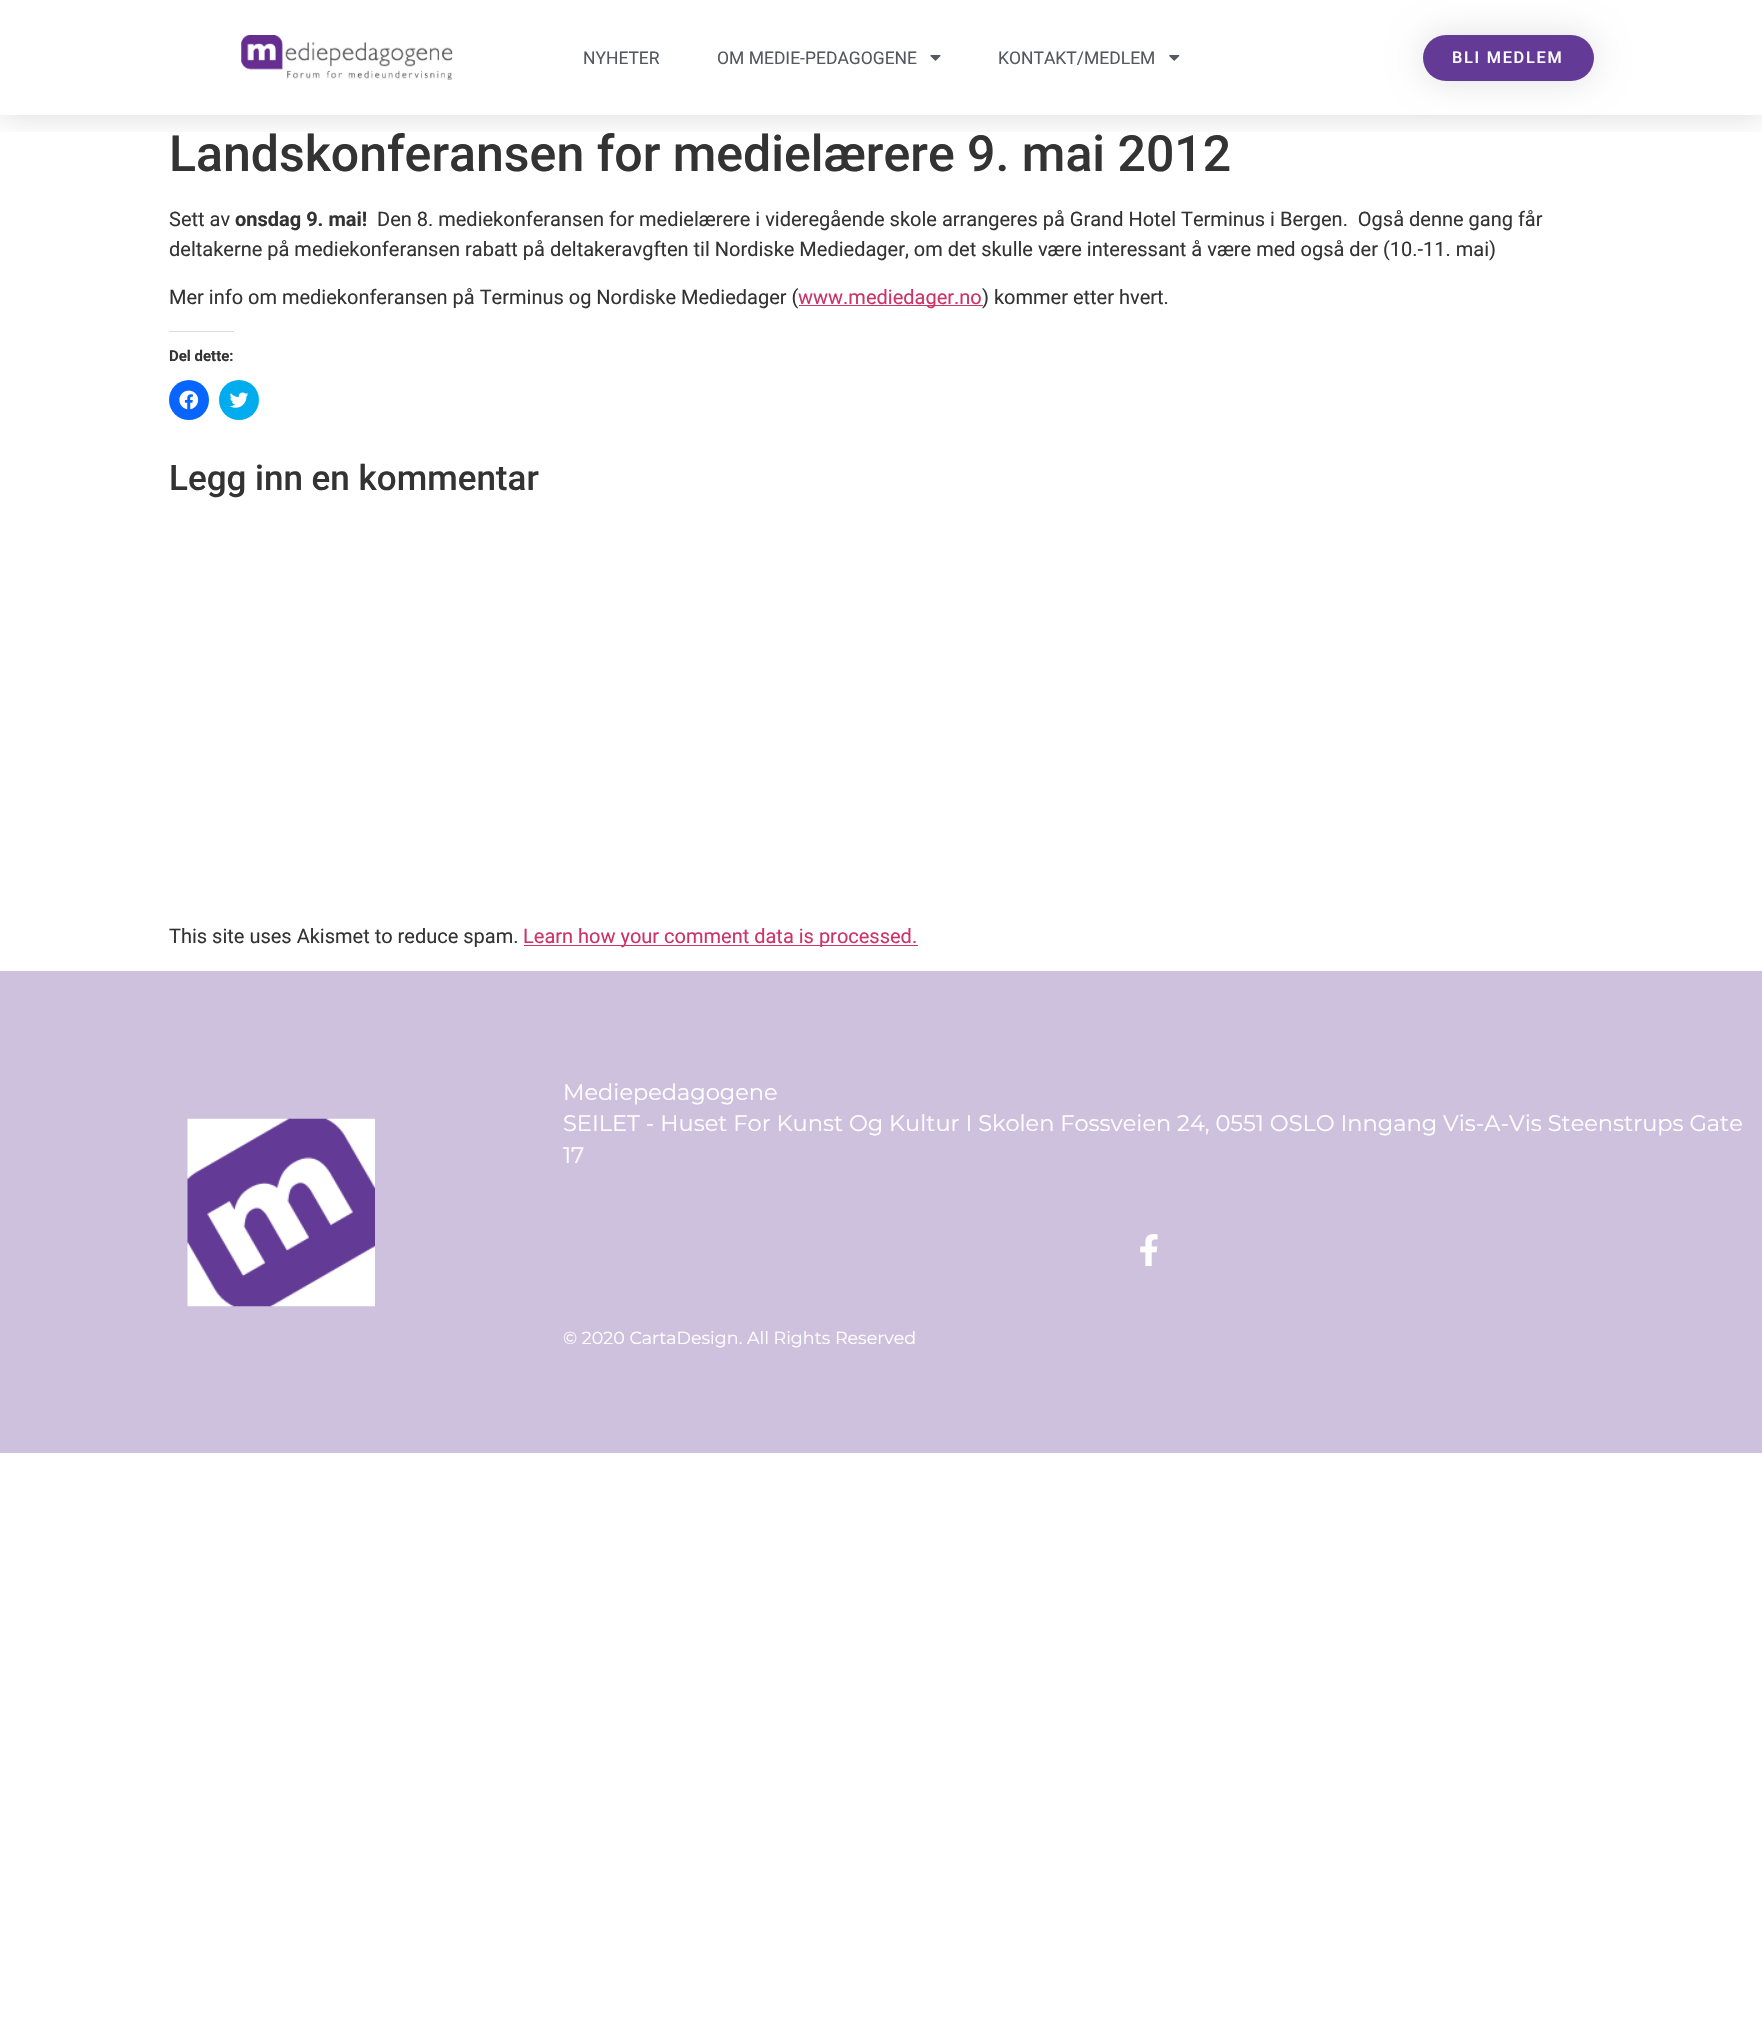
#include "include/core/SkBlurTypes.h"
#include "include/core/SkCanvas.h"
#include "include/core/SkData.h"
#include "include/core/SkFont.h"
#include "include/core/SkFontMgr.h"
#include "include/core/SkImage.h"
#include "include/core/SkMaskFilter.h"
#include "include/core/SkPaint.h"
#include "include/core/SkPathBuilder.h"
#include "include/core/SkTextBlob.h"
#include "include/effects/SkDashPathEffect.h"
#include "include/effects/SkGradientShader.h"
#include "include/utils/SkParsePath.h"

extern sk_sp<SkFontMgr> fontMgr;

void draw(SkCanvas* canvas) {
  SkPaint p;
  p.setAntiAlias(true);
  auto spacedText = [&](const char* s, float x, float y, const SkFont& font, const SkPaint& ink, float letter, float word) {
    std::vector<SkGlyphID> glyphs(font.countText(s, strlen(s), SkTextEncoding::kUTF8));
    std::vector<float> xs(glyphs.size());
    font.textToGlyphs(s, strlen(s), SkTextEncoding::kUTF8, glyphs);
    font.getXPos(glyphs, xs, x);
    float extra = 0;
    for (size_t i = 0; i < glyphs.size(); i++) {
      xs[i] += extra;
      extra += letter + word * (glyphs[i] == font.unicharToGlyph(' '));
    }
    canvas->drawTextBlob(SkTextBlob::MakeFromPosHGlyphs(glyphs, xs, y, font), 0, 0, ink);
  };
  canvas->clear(SK_ColorWHITE);
  canvas->save();
  canvas->clipRect(SkRect::MakeLTRB(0, 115, 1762, 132));
  p.setColor(SkColorSetARGB(38, 0, 0, 0));
  p.setMaskFilter(SkMaskFilter::MakeBlur(kNormal_SkBlurStyle, 15));
  canvas->drawRect(SkRect::MakeLTRB(0, 0, 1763, 115), p);
  p.setMaskFilter(nullptr);
  canvas->restore();
  canvas->drawImageRect(SkImages::DeferredFromEncodedData(SkData::MakeFromFileName("images/1.png")), SkRect::MakeLTRB(241, 35, 453, 80), SkSamplingOptions());
  canvas->drawImageRect(SkImages::DeferredFromEncodedData(SkData::MakeFromFileName("images/2.png")), SkRect::MakeLTRB(930, 55, 941, 61), SkSamplingOptions());
  canvas->drawImageRect(SkImages::DeferredFromEncodedData(SkData::MakeFromFileName("images/3.png")), SkRect::MakeLTRB(1169, 55, 1180, 61), SkSamplingOptions());
  p.setColor(SkColorSetARGB(31, 0, 0, 0));
  p.setMaskFilter(SkMaskFilter::MakeBlur(kNormal_SkBlurStyle, 17));
  canvas->drawRoundRect(SkRect::MakeLTRB(1423, 35, 1594, 81), 23, 23, p);
  p.setMaskFilter(nullptr);
  p.setColor(SkColorSetRGB(99, 59, 150));
  canvas->drawRoundRect(SkRect::MakeLTRB(1423, 35, 1594, 81), 23, 23, p);
  p.setColor(SkColorSetRGB(204, 51, 102));
  canvas->drawRect(SkRect::MakeLTRB(799, 305, 983, 306), p);
  p.setColor(SkColorSetRGB(220, 220, 222));
  canvas->drawRect(SkRect::MakeLTRB(169, 331, 234, 332), p);
  p.setColor(SkColorSetRGB(8, 102, 255));
  canvas->drawCircle(189, 400, 20, p);
  canvas->drawImageRect(SkImages::DeferredFromEncodedData(SkData::MakeFromFileName("images/4.png")), SkRect::MakeLTRB(179, 390, 199, 410), SkSamplingOptions());
  p.setColor(SkColorSetRGB(0, 172, 238));
  canvas->drawCircle(239, 400, 20, p);
  canvas->drawImageRect(SkImages::DeferredFromEncodedData(SkData::MakeFromFileName("images/5.png")), SkRect::MakeLTRB(229, 392, 249, 408), SkSamplingOptions());
  p.setColor(SkColorSetRGB(204, 51, 102));
  canvas->drawRect(SkRect::MakeLTRB(524, 945, 918, 946), p);
  p.setColor(SkColorSetRGB(206, 193, 222));
  canvas->drawRect(SkRect::MakeLTRB(0, 971, 1762, 1453), p);
  canvas->drawImageRect(SkImages::DeferredFromEncodedData(SkData::MakeFromFileName("images/6.png")), SkRect::MakeLTRB(187, 1118, 375, 1307), SkSamplingOptions());
  canvas->drawImageRect(SkImages::DeferredFromEncodedData(SkData::MakeFromFileName("images/7.png")), SkRect::MakeLTRB(1140, 1234, 1158, 1266), SkSamplingOptions());
  SkFont font1(fontMgr->matchFamilyStyle("Roboto", SkFontStyle::Normal()), 17.5f);
  font1.setSubpixel(true);
  p.setColor(SkColorSetRGB(84, 89, 95));
  canvas->drawString("NYHETER", 583, 64, font1, p);
  canvas->drawString("OM MEDIE-PEDAGOGENE", 717, 64, font1, p);
  canvas->drawString("KONTAKT/MEDLEM", 998, 64, font1, p);
  SkFont font2(fontMgr->matchFamilyStyle("Roboto", SkFontStyle(500, SkFontStyle::kNormal_Width, SkFontStyle::kUpright_Slant)), 16.25f);
  font2.setSubpixel(true);
  p.setColor(SK_ColorWHITE);
  spacedText("BLI MEDLEM", 1452, 63, font2, p, 1.75f, 0);
  SkFont font3(fontMgr->matchFamilyStyle("Roboto", SkFontStyle(500, SkFontStyle::kNormal_Width, SkFontStyle::kUpright_Slant)), 50);
  font3.setSubpixel(true);
  p.setColor(SkColorSetRGB(51, 51, 51));
  canvas->drawString("Landskonferansen for medielærere 9. mai 2012", 169, 171, font3, p);
  SkFont font4(fontMgr->matchFamilyStyle("Roboto", SkFontStyle::Normal()), 20);
  font4.setSubpixel(true);
  canvas->drawString("Sett av", 169, 226, font4, p);
  SkFont font5(fontMgr->matchFamilyStyle("Roboto", SkFontStyle::Bold()), 20);
  font5.setSubpixel(true);
  canvas->drawString("onsdag 9. mai!", 235, 226, font5, p);
  canvas->drawString("Den 8. mediekonferansen for medielærere i videregående skole arrangeres på Grand Hotel Terminus i Bergen.  Også denne gang får", 377, 226, font4, p);
  canvas->drawString("deltakerne på mediekonferansen rabatt på deltakeravgften til Nordiske Mediedager, om det skulle være interessant å være med også der (10.-11. mai)", 169, 256, font4, p);
  canvas->drawString("Mer info om mediekonferansen på Terminus og Nordiske Mediedager (", 169, 304, font4, p);
  p.setColor(SkColorSetRGB(204, 51, 102));
  canvas->drawString("www.mediedager.no", 798, 304, font4, p);
  p.setColor(SkColorSetRGB(51, 51, 51));
  canvas->drawString(") kommer etter hvert.", 982, 304, font4, p);
  SkFont font6(fontMgr->matchFamilyStyle("Roboto", SkFontStyle::Bold()), 15);
  font6.setSubpixel(true);
  canvas->drawString("Del dette:", 169, 361, font6, p);
  SkFont font7(fontMgr->matchFamilyStyle("Roboto", SkFontStyle(500, SkFontStyle::kNormal_Width, SkFontStyle::kUpright_Slant)), 35);
  font7.setSubpixel(true);
  canvas->drawString("Legg inn en kommentar", 169, 490, font7, p);
  canvas->drawString("This site uses Akismet to reduce spam.", 169, 943, font4, p);
  p.setColor(SkColorSetRGB(204, 51, 102));
  canvas->drawString("Learn how your comment data is processed.", 523, 943, font4, p);
  SkFont font8(fontMgr->matchFamilyStyle("Montserrat", SkFontStyle::Normal()), 22.5f);
  font8.setSubpixel(true);
  p.setColor(SK_ColorWHITE);
  canvas->drawString("Mediepedagogene", 563, 1100, font8, p);
  canvas->drawString("SEILET - Huset For Kunst Og Kultur I Skolen Fossveien 24, 0551 OSLO Inngang Vis-A-Vis Steenstrups Gate", 563, 1131, font8, p);
  canvas->drawString("17", 563, 1163, font8, p);
  SkFont font9(fontMgr->matchFamilyStyle("Montserrat", SkFontStyle::Normal()), 17.5f);
  font9.setSubpixel(true);
  canvas->drawString("© 2020 CartaDesign. All Rights Reserved", 563, 1344, font9, p);
}
